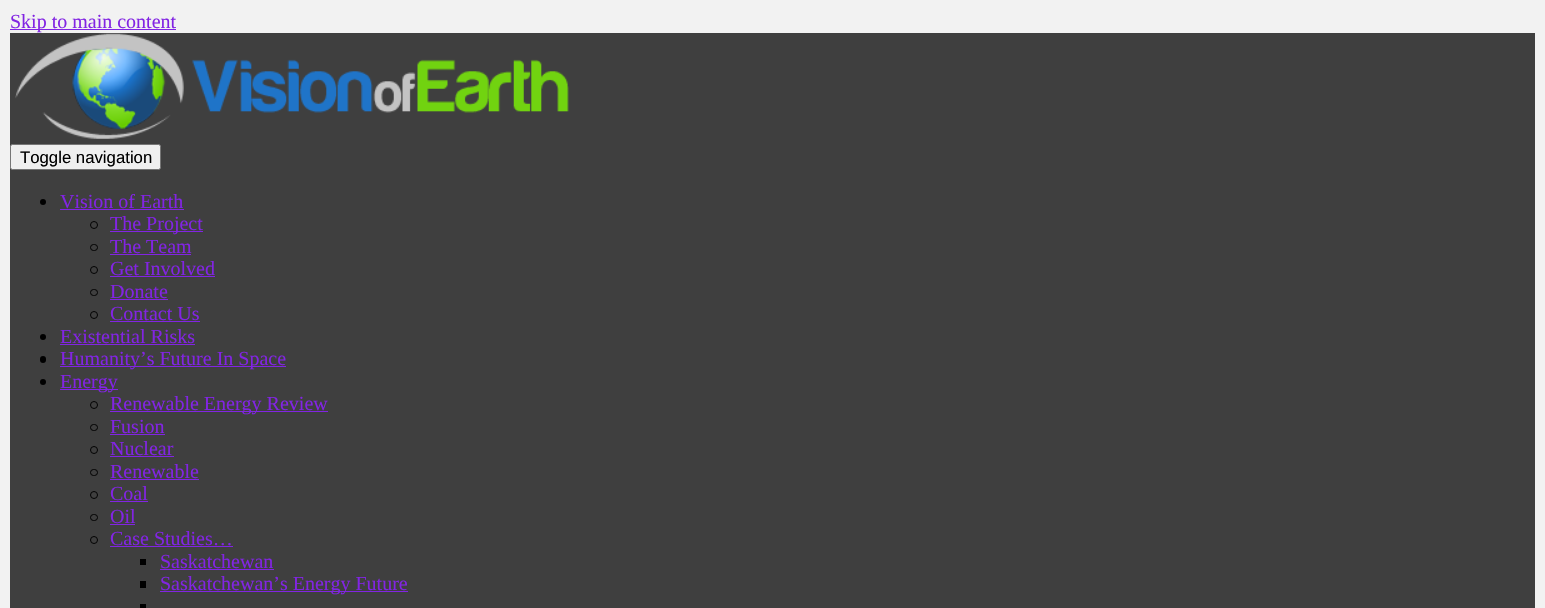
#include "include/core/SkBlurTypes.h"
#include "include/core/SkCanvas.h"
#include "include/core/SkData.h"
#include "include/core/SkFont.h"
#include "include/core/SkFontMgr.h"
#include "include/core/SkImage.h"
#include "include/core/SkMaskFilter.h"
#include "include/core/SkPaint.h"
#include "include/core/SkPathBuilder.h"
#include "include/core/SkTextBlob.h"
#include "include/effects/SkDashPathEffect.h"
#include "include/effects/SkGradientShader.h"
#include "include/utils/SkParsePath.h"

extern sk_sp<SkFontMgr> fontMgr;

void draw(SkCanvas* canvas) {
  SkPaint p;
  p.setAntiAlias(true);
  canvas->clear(SkColorSetRGB(242, 242, 242));
  p.setColor(SkColorSetRGB(130, 36, 227));
  canvas->drawRect(SkRect::MakeLTRB(10, 29, 176, 30), p);
  p.setColor(SkColorSetRGB(63, 63, 63));
  canvas->drawRect(SkRect::MakeLTRB(10, 33, 1535, 608), p);
  canvas->drawImageRect(SkImages::DeferredFromEncodedData(SkData::MakeFromFileName("images/1.png")), SkRect::MakeLTRB(15, 33, 569, 139), SkSamplingOptions());
  p.setColor(SkColorSetRGB(239, 239, 239));
  canvas->drawRoundRect(SkRect::MakeLTRB(10.5f, 144.5f, 160.5f, 169.5f), 2, 2, p);
  p.setStyle(SkPaint::kStroke_Style);
  p.setStrokeWidth(1);
  p.setColor(SkColorSetRGB(118, 118, 118));
  canvas->drawRoundRect(SkRect::MakeLTRB(10.5f, 144.5f, 160.5f, 169.5f), 2, 2, p);
  p.setStyle(SkPaint::kFill_Style);
  p.setColor(SK_ColorBLACK);
  canvas->drawCircle(43, 202, 3, p);
  p.setColor(SkColorSetRGB(130, 36, 227));
  canvas->drawRect(SkRect::MakeLTRB(60, 209, 184, 210), p);
  p.setStyle(SkPaint::kStroke_Style);
  p.setColor(SK_ColorBLACK);
  canvas->drawCircle(94, 225, 3.5f, p);
  p.setStyle(SkPaint::kFill_Style);
  p.setColor(SkColorSetRGB(130, 36, 227));
  canvas->drawRect(SkRect::MakeLTRB(110, 231, 203, 232), p);
  p.setStyle(SkPaint::kStroke_Style);
  p.setColor(SK_ColorBLACK);
  canvas->drawRoundRect(SkRect::MakeLTRB(90.5f, 244.5f, 97.5f, 250.5f), 3, 3, p);
  p.setStyle(SkPaint::kFill_Style);
  p.setColor(SkColorSetRGB(130, 36, 227));
  canvas->drawRect(SkRect::MakeLTRB(110, 254, 191, 255), p);
  p.setStyle(SkPaint::kStroke_Style);
  p.setColor(SK_ColorBLACK);
  canvas->drawCircle(94, 270, 3.5f, p);
  p.setStyle(SkPaint::kFill_Style);
  p.setColor(SkColorSetRGB(130, 36, 227));
  canvas->drawRect(SkRect::MakeLTRB(110, 276, 215, 277), p);
  p.setStyle(SkPaint::kStroke_Style);
  p.setColor(SK_ColorBLACK);
  canvas->drawRoundRect(SkRect::MakeLTRB(90.5f, 289.5f, 97.5f, 295.5f), 3, 3, p);
  p.setStyle(SkPaint::kFill_Style);
  p.setColor(SkColorSetRGB(130, 36, 227));
  canvas->drawRect(SkRect::MakeLTRB(110, 299, 168, 300), p);
  p.setStyle(SkPaint::kStroke_Style);
  p.setColor(SK_ColorBLACK);
  canvas->drawCircle(94, 315, 3.5f, p);
  p.setStyle(SkPaint::kFill_Style);
  p.setColor(SkColorSetRGB(130, 36, 227));
  canvas->drawRect(SkRect::MakeLTRB(110, 321, 200, 322), p);
  p.setColor(SK_ColorBLACK);
  canvas->drawCircle(43, 337, 3, p);
  p.setColor(SkColorSetRGB(130, 36, 227));
  canvas->drawRect(SkRect::MakeLTRB(60, 344, 195, 345), p);
  p.setColor(SK_ColorBLACK);
  canvas->drawRoundRect(SkRect::MakeLTRB(40, 356, 46, 363), 3, 3, p);
  p.setColor(SkColorSetRGB(130, 36, 227));
  canvas->drawRect(SkRect::MakeLTRB(60, 366, 286, 367), p);
  p.setColor(SK_ColorBLACK);
  canvas->drawCircle(43, 382, 3, p);
  p.setColor(SkColorSetRGB(130, 36, 227));
  canvas->drawRect(SkRect::MakeLTRB(60, 389, 118, 390), p);
  p.setStyle(SkPaint::kStroke_Style);
  p.setColor(SK_ColorBLACK);
  canvas->drawCircle(94, 405, 3.5f, p);
  p.setStyle(SkPaint::kFill_Style);
  p.setColor(SkColorSetRGB(130, 36, 227));
  canvas->drawRect(SkRect::MakeLTRB(110, 411, 328, 412), p);
  p.setStyle(SkPaint::kStroke_Style);
  p.setColor(SK_ColorBLACK);
  canvas->drawRoundRect(SkRect::MakeLTRB(90.5f, 424.5f, 97.5f, 430.5f), 3, 3, p);
  p.setStyle(SkPaint::kFill_Style);
  p.setColor(SkColorSetRGB(130, 36, 227));
  canvas->drawRect(SkRect::MakeLTRB(110, 434, 165, 435), p);
  p.setStyle(SkPaint::kStroke_Style);
  p.setColor(SK_ColorBLACK);
  canvas->drawCircle(94, 450, 3.5f, p);
  p.setStyle(SkPaint::kFill_Style);
  p.setColor(SkColorSetRGB(130, 36, 227));
  canvas->drawRect(SkRect::MakeLTRB(110, 456, 174, 457), p);
  p.setStyle(SkPaint::kStroke_Style);
  p.setColor(SK_ColorBLACK);
  canvas->drawRoundRect(SkRect::MakeLTRB(90.5f, 469.5f, 97.5f, 475.5f), 3, 3, p);
  p.setStyle(SkPaint::kFill_Style);
  p.setColor(SkColorSetRGB(130, 36, 227));
  canvas->drawRect(SkRect::MakeLTRB(110, 479, 199, 480), p);
  p.setStyle(SkPaint::kStroke_Style);
  p.setColor(SK_ColorBLACK);
  canvas->drawCircle(94, 495, 3.5f, p);
  p.setStyle(SkPaint::kFill_Style);
  p.setColor(SkColorSetRGB(130, 36, 227));
  canvas->drawRect(SkRect::MakeLTRB(110, 501, 148, 502), p);
  p.setStyle(SkPaint::kStroke_Style);
  p.setColor(SK_ColorBLACK);
  canvas->drawRoundRect(SkRect::MakeLTRB(90.5f, 514.5f, 97.5f, 520.5f), 3, 3, p);
  p.setStyle(SkPaint::kFill_Style);
  p.setColor(SkColorSetRGB(130, 36, 227));
  canvas->drawRect(SkRect::MakeLTRB(110, 524, 135, 525), p);
  p.setStyle(SkPaint::kStroke_Style);
  p.setColor(SK_ColorBLACK);
  canvas->drawCircle(94, 540, 3.5f, p);
  p.setStyle(SkPaint::kFill_Style);
  p.setColor(SkColorSetRGB(130, 36, 227));
  canvas->drawRect(SkRect::MakeLTRB(110, 546, 233, 547), p);
  p.setColor(SK_ColorBLACK);
  canvas->drawRect(SkRect::MakeLTRB(140, 559, 146, 565), p);
  p.setColor(SkColorSetRGB(130, 36, 227));
  canvas->drawRect(SkRect::MakeLTRB(160, 569, 274, 570), p);
  p.setColor(SK_ColorBLACK);
  canvas->drawRect(SkRect::MakeLTRB(140, 581, 146, 588), p);
  p.setColor(SkColorSetRGB(130, 36, 227));
  canvas->drawRect(SkRect::MakeLTRB(160, 591, 408, 592), p);
  p.setColor(SK_ColorBLACK);
  canvas->drawRect(SkRect::MakeLTRB(140, 604, 146, 608), p);
  SkFont font1(fontMgr->matchFamilyStyle("Liberation Serif", SkFontStyle::Normal()), 20);
  font1.setSubpixel(true);
  p.setColor(SkColorSetRGB(130, 36, 227));
  canvas->drawString("Skip to main content", 10, 28, font1, p);
  SkFont font2(fontMgr->matchFamilyStyle("Liberation Sans", SkFontStyle::Normal()), 16.75f);
  font2.setSubpixel(true);
  p.setColor(SK_ColorBLACK);
  canvas->drawString("Toggle navigation", 20, 163, font2, p);
  p.setColor(SkColorSetRGB(130, 36, 227));
  canvas->drawString("Vision of Earth", 60, 208, font1, p);
  canvas->drawString("The Project", 110, 230, font1, p);
  canvas->drawString("The Team", 110, 253, font1, p);
  canvas->drawString("Get Involved", 110, 275, font1, p);
  canvas->drawString("Donate", 110, 298, font1, p);
  canvas->drawString("Contact Us", 110, 320, font1, p);
  canvas->drawString("Existential Risks", 60, 343, font1, p);
  canvas->drawString("Humanity’s Future In Space", 60, 365, font1, p);
  canvas->drawString("Energy", 60, 388, font1, p);
  canvas->drawString("Renewable Energy Review", 110, 410, font1, p);
  canvas->drawString("Fusion", 110, 433, font1, p);
  canvas->drawString("Nuclear", 110, 455, font1, p);
  canvas->drawString("Renewable", 110, 478, font1, p);
  canvas->drawString("Coal", 110, 500, font1, p);
  canvas->drawString("Oil", 110, 523, font1, p);
  canvas->drawString("Case Studies…", 110, 545, font1, p);
  canvas->drawString("Saskatchewan", 160, 568, font1, p);
  canvas->drawString("Saskatchewan’s Energy Future", 160, 590, font1, p);
}
